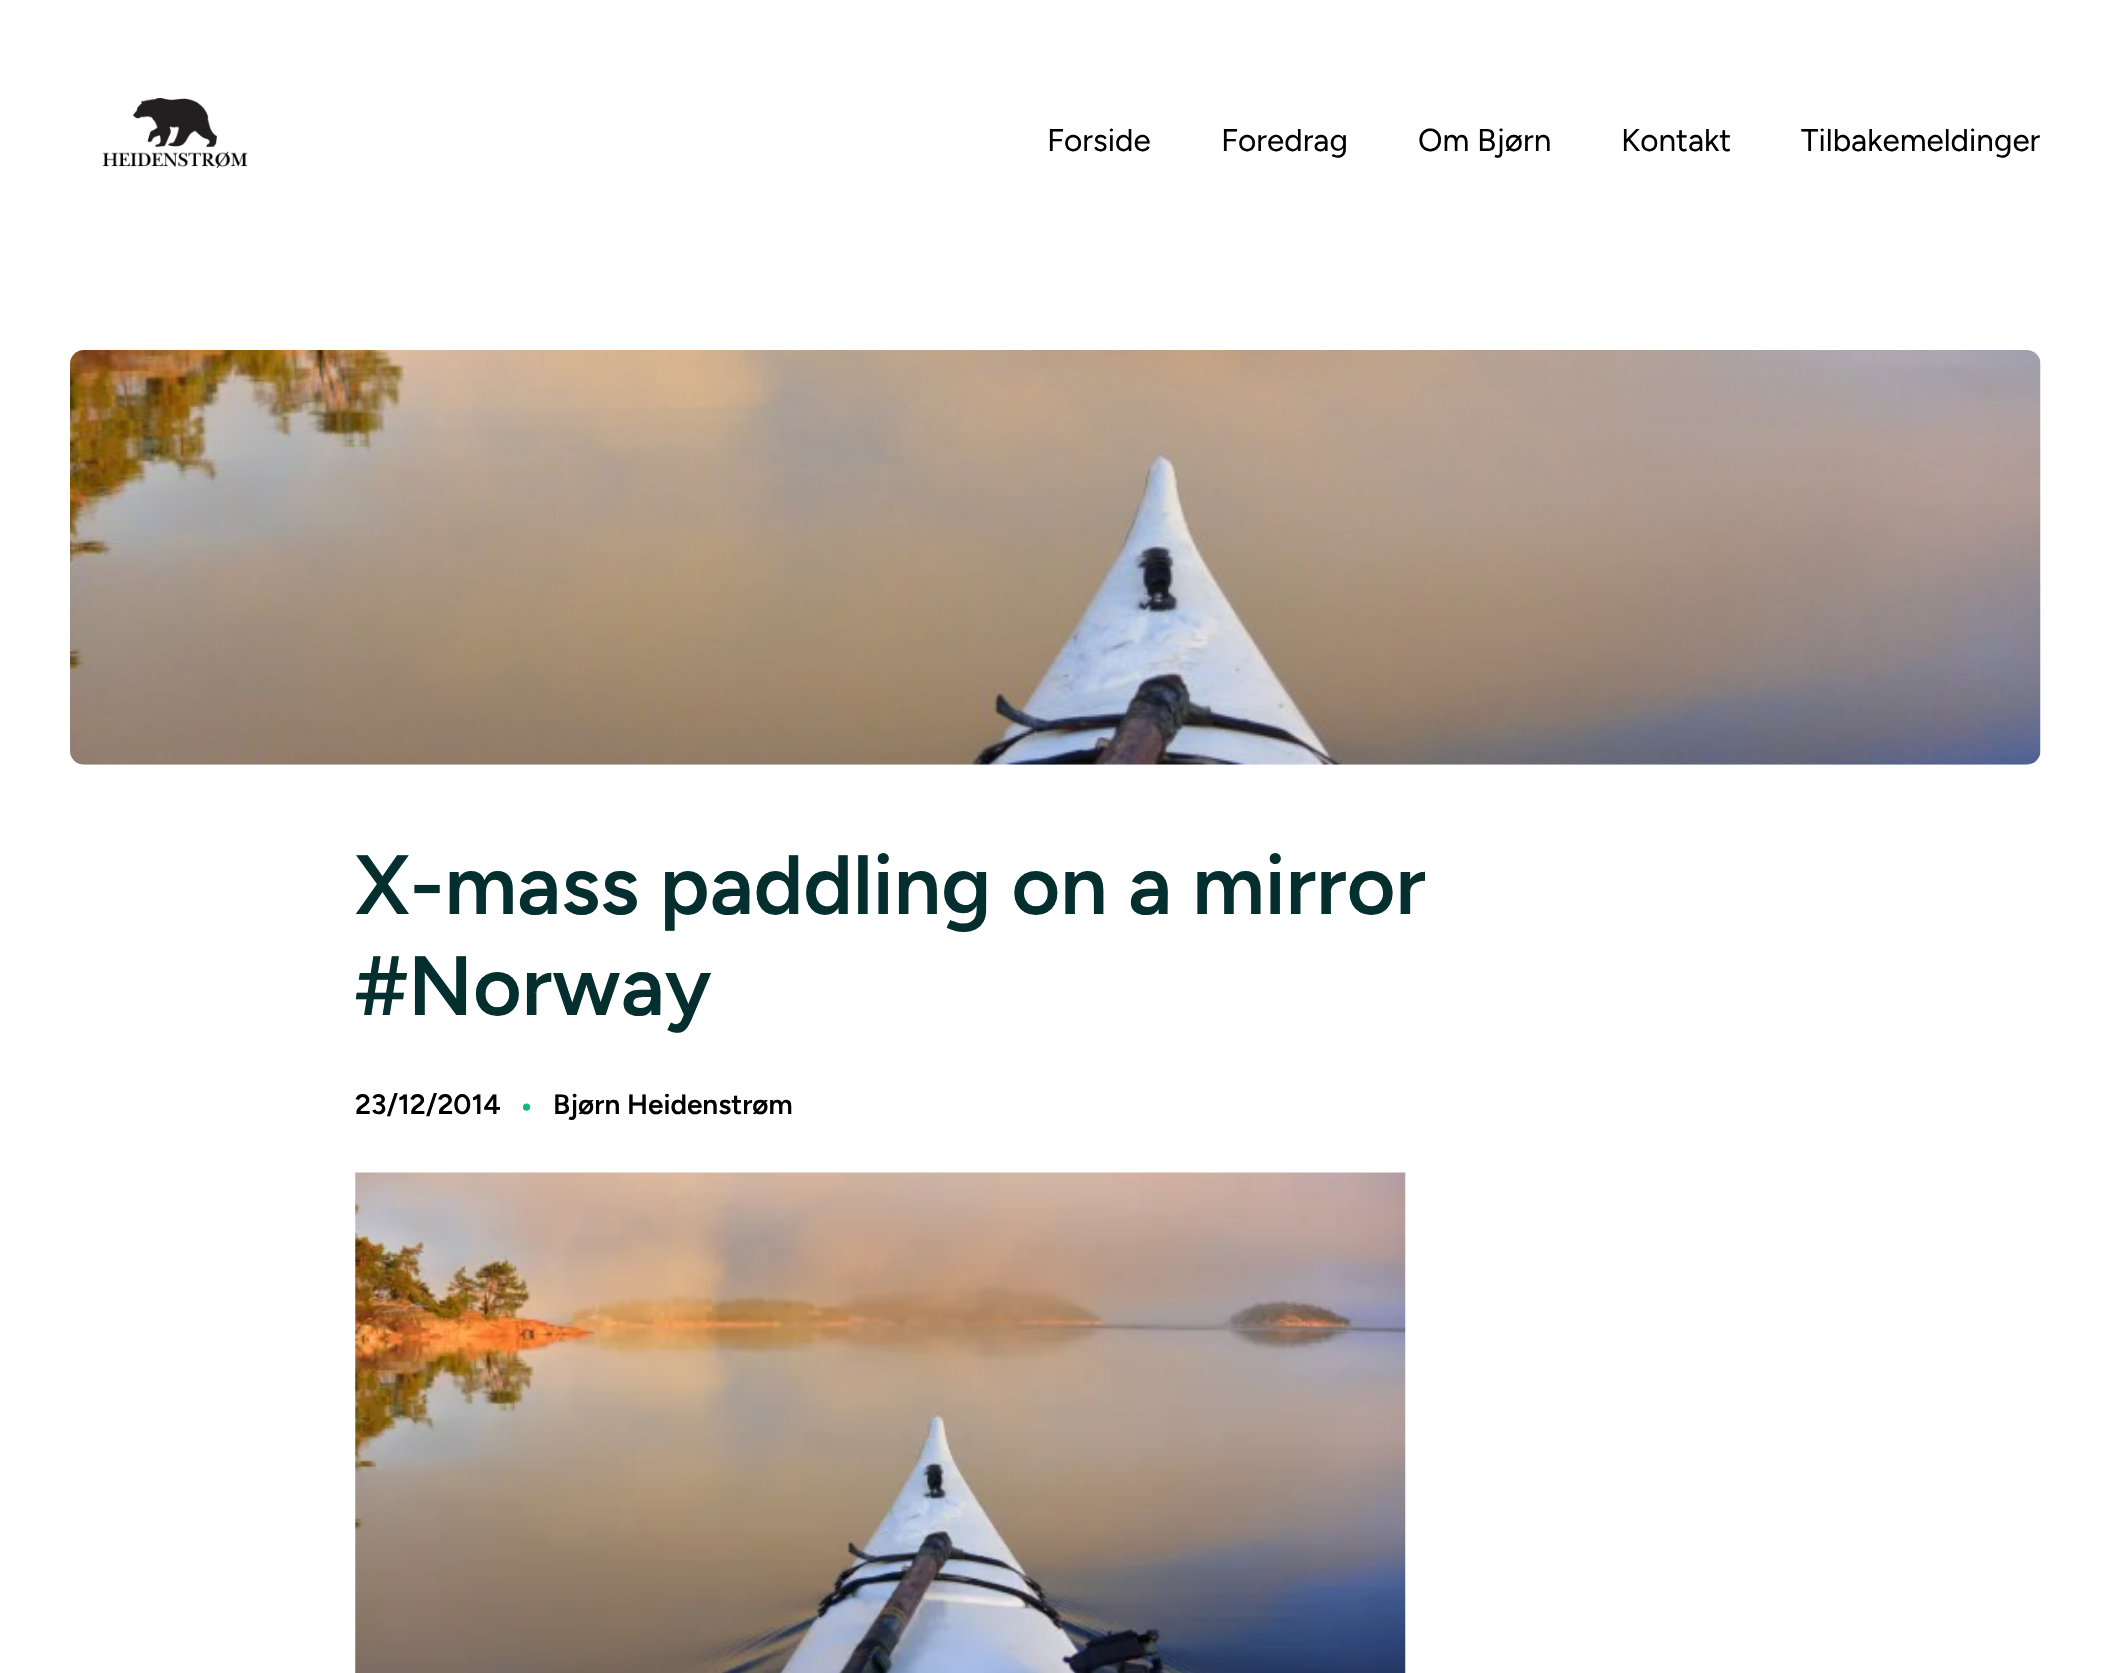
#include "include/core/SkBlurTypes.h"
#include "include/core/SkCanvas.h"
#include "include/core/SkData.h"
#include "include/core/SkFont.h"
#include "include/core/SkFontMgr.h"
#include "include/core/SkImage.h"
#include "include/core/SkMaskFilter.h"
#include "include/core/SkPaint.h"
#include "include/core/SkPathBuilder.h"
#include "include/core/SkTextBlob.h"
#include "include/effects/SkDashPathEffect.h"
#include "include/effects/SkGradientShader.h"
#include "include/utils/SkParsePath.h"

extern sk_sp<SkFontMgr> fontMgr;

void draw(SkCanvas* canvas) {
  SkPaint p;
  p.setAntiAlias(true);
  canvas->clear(SK_ColorWHITE);
  canvas->drawImageRect(SkImages::DeferredFromEncodedData(SkData::MakeFromFileName("images/1.png")), SkRect::MakeLTRB(102, 98, 248, 169), SkSamplingOptions());
  canvas->drawImageRect(SkImages::DeferredFromEncodedData(SkData::MakeFromFileName("images/2.png")), SkRect::MakeLTRB(70, 350, 2041, 765), SkSamplingOptions());
  canvas->drawImageRect(SkImages::DeferredFromEncodedData(SkData::MakeFromFileName("images/3.png")), SkRect::MakeLTRB(355, 1172, 1406, 1673), SkSamplingOptions());
  SkFont font1(fontMgr->matchFamilyStyle("Figtree", SkFontStyle::Normal()), 31.5f);
  font1.setSubpixel(true);
  p.setColor(SK_ColorBLACK);
  canvas->drawString("Forside", 1047, 151, font1, p);
  canvas->drawString("Foredrag", 1221, 151, font1, p);
  canvas->drawString("Om Bjørn", 1418, 151, font1, p);
  canvas->drawString("Kontakt", 1621, 151, font1, p);
  canvas->drawString("Tilbakemeldinger", 1801, 151, font1, p);
  SkFont font2(fontMgr->matchFamilyStyle("Figtree", SkFontStyle(600, SkFontStyle::kNormal_Width, SkFontStyle::kUpright_Slant)), 84);
  font2.setSubpixel(true);
  p.setColor(SkColorSetRGB(4, 47, 46));
  canvas->drawString("X-mass paddling on a mirror", 355, 914, font2, p);
  canvas->drawString("#Norway", 355, 1015, font2, p);
  SkFont font3(fontMgr->matchFamilyStyle("Figtree", SkFontStyle(600, SkFontStyle::kNormal_Width, SkFontStyle::kUpright_Slant)), 28);
  font3.setSubpixel(true);
  p.setColor(SK_ColorBLACK);
  canvas->drawString("23/12/2014", 355, 1114, font3, p);
  SkFont font4(fontMgr->matchFamilyStyle("Figtree", SkFontStyle::Normal()), 35);
  font4.setSubpixel(true);
  p.setColor(SkColorSetRGB(16, 185, 129));
  canvas->drawString("•", 518, 1117, font4, p);
  p.setColor(SK_ColorBLACK);
  canvas->drawString("Bjørn Heidenstrøm", 553, 1114, font3, p);
}
